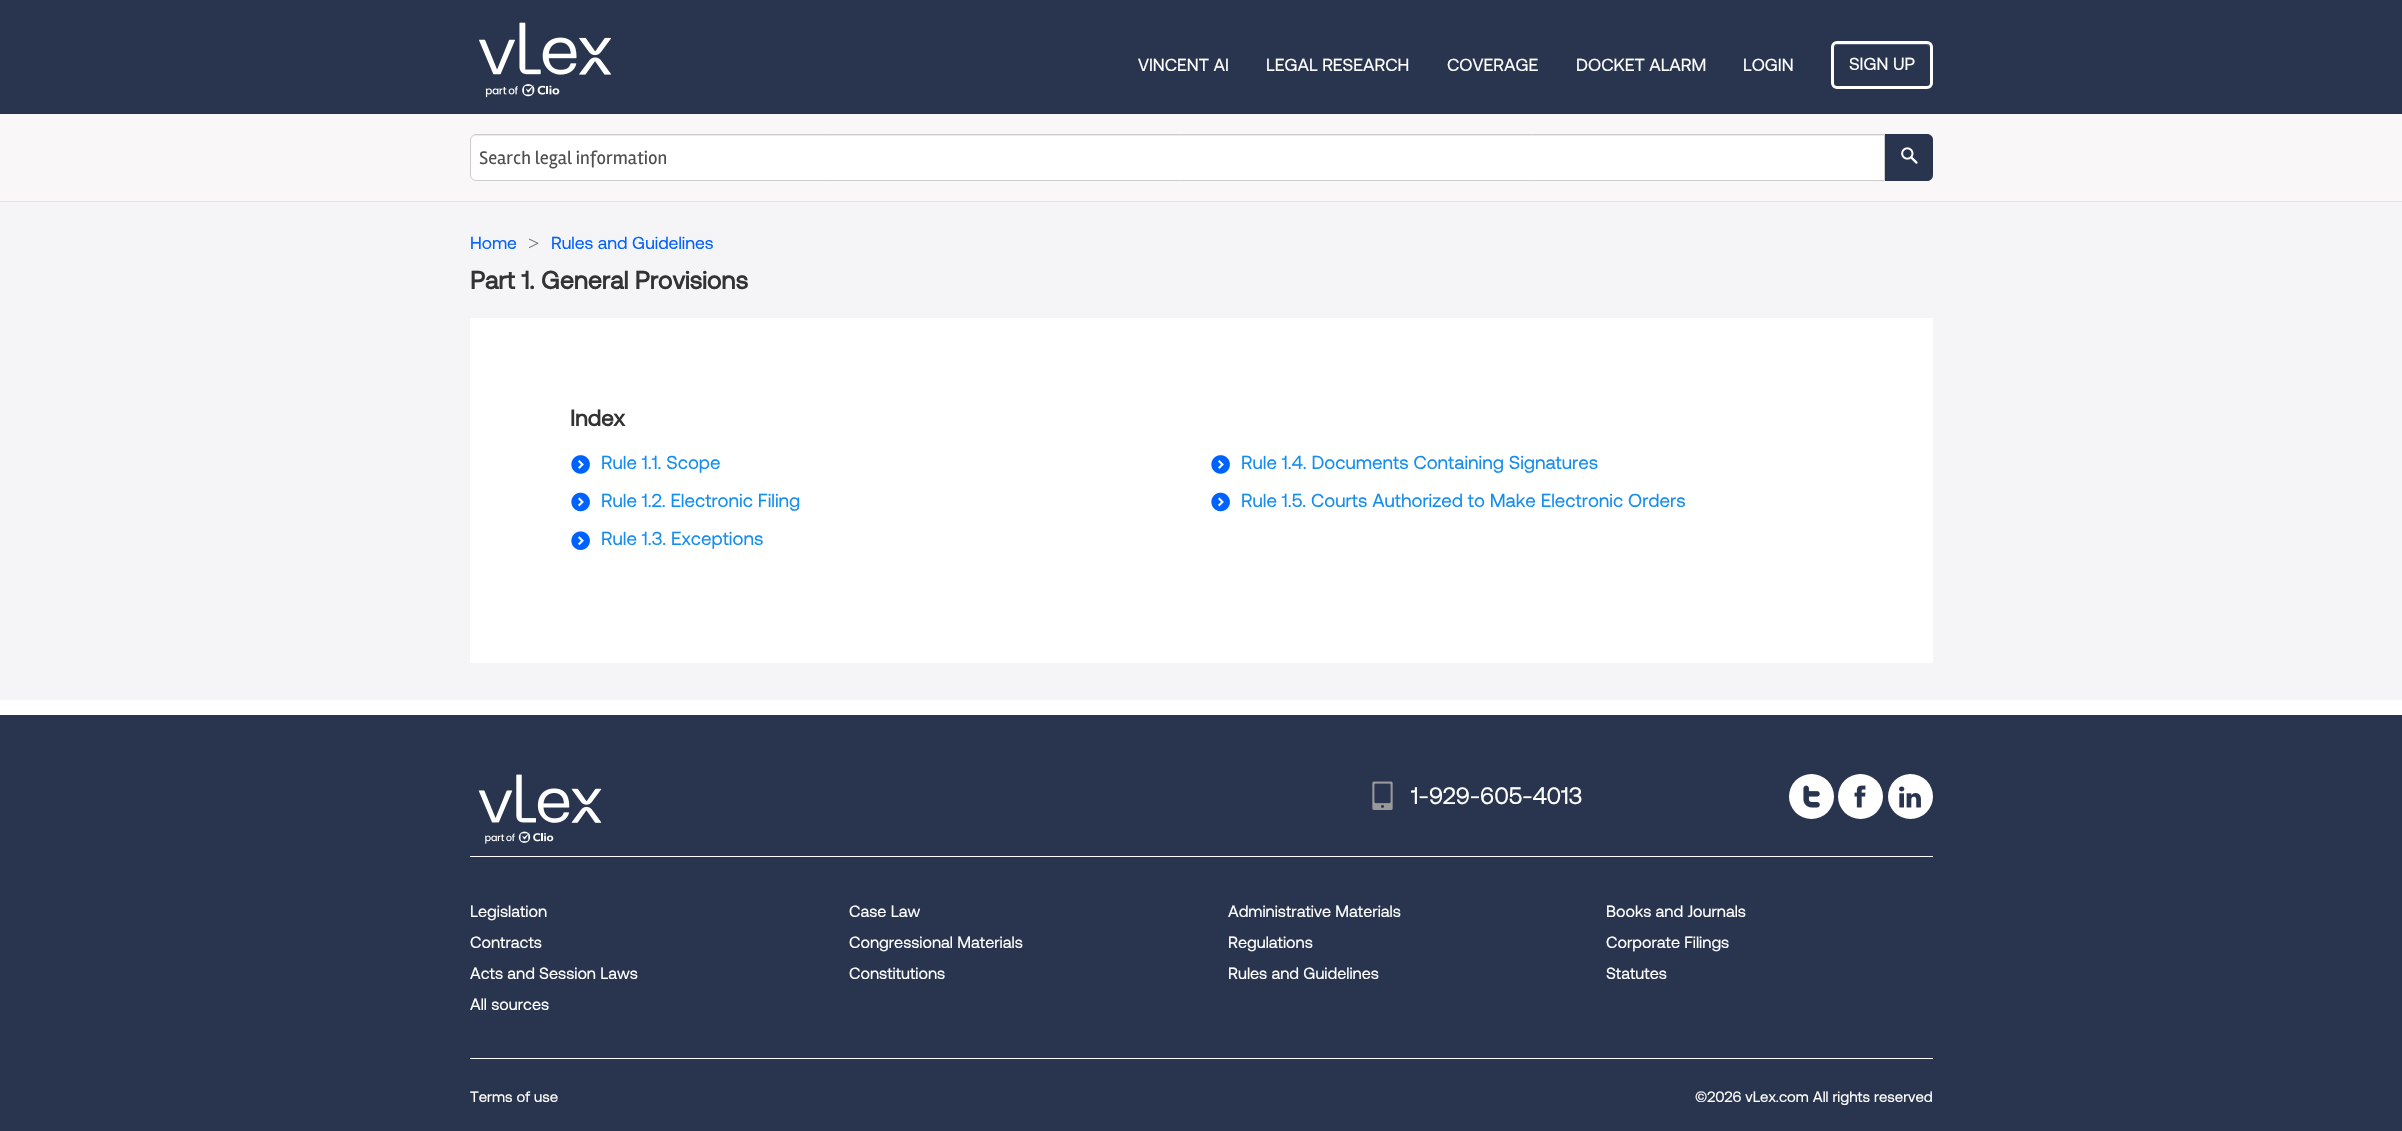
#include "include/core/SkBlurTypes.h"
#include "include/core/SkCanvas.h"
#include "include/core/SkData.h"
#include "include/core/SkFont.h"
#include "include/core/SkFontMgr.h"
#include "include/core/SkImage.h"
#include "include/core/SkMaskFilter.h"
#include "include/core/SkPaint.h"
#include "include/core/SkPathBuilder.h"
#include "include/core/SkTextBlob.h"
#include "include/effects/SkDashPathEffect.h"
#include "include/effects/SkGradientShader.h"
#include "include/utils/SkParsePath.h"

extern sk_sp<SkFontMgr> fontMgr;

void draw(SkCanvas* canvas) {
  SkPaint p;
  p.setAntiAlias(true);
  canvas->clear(SK_ColorWHITE);
  p.setColor(SkColorSetRGB(41, 53, 78));
  canvas->drawRect(SkRect::MakeLTRB(0, 0, 2402, 114), p);
  canvas->drawImageRect(SkImages::DeferredFromEncodedData(SkData::MakeFromFileName("images/1.png")), SkRect::MakeLTRB(479, 22, 611, 98), SkSamplingOptions());
  p.setColor(SkColorSetRGB(84, 93, 113));
  canvas->drawPath(SkPathBuilder().moveTo(1838, 45).lineTo(1926, 45).cubicTo(1928, 45, 1930, 47, 1930, 49).cubicTo(1930, 40, 1916, 44, 1911, 44).lineTo(1853, 44).cubicTo(1848, 44, 1834, 40, 1834, 49).cubicTo(1834, 47, 1835, 45, 1838, 45).close().detach(), p);
  p.setStyle(SkPaint::kStroke_Style);
  p.setStrokeWidth(3);
  p.setColor(SK_ColorWHITE);
  canvas->drawRoundRect(SkRect::MakeLTRB(1832.5f, 42.5f, 1931.5f, 87.5f), 4.5f, 4.5f, p);
  p.setStyle(SkPaint::kFill_Style);
  p.setColor(SkColorSetRGB(249, 247, 247));
  canvas->drawRect(SkRect::MakeLTRB(0, 114, 2402, 203), p);
  p.setColor(SkColorSetRGB(225, 225, 225));
  canvas->drawRect(SkRect::MakeLTRB(0, 201, 2402, 202), p);
  p.setColor(SK_ColorWHITE);
  canvas->drawPath(SkPathBuilder().moveTo(476, 134).lineTo(1885, 134).lineTo(1885, 181).lineTo(476, 181).cubicTo(472.5f, 181, 470, 178.5f, 470, 175).lineTo(470, 140).cubicTo(470, 136.5f, 472.5f, 134, 476, 134).close().detach(), p);
  p.setColor(SkColorSetRGB(236, 236, 236));
  canvas->drawPath(SkPathBuilder().moveTo(476, 136).lineTo(1884, 136).lineTo(1884, 135).lineTo(476, 135).cubicTo(473, 135, 471, 138, 471, 141).cubicTo(471, 138, 473, 136, 476, 136).close().detach(), p);
  p.setStyle(SkPaint::kStroke_Style);
  p.setStrokeWidth(1);
  p.setColor(SkColorSetRGB(204, 204, 204));
  canvas->drawPath(SkPathBuilder().moveTo(476, 134.5f).lineTo(1884.5f, 134.5f).lineTo(1884.5f, 180.5f).lineTo(476, 180.5f).cubicTo(473, 180.5f, 470.5f, 178, 470.5f, 175).lineTo(470.5f, 140).cubicTo(470.5f, 137, 473, 134.5f, 476, 134.5f).close().detach(), p);
  p.setStyle(SkPaint::kFill_Style);
  p.setColor(SkColorSetRGB(41, 53, 78));
  canvas->drawPath(SkPathBuilder().moveTo(1885, 134).lineTo(1927, 134).cubicTo(1930.5f, 134, 1933, 136.5f, 1933, 140).lineTo(1933, 175).cubicTo(1933, 178.5f, 1930.5f, 181, 1927, 181).lineTo(1885, 181).close().detach(), p);
  canvas->drawImageRect(SkImages::DeferredFromEncodedData(SkData::MakeFromFileName("images/2.png")), SkRect::MakeLTRB(1901, 147, 1918, 164), SkSamplingOptions());
  p.setColor(SkColorSetRGB(245, 245, 247));
  canvas->drawRect(SkRect::MakeLTRB(0, 203, 2402, 700), p);
  p.setColor(SK_ColorWHITE);
  canvas->drawRect(SkRect::MakeLTRB(470, 318, 1933, 663), p);
  canvas->drawImageRect(SkImages::DeferredFromEncodedData(SkData::MakeFromFileName("images/3.png")), SkRect::MakeLTRB(571, 455, 590, 474), SkSamplingOptions());
  canvas->drawImageRect(SkImages::DeferredFromEncodedData(SkData::MakeFromFileName("images/3.png")), SkRect::MakeLTRB(1211, 455, 1230, 474), SkSamplingOptions());
  canvas->drawImageRect(SkImages::DeferredFromEncodedData(SkData::MakeFromFileName("images/4.png")), SkRect::MakeLTRB(571, 492, 590, 512), SkSamplingOptions());
  canvas->drawImageRect(SkImages::DeferredFromEncodedData(SkData::MakeFromFileName("images/4.png")), SkRect::MakeLTRB(1211, 492, 1230, 512), SkSamplingOptions());
  canvas->drawImageRect(SkImages::DeferredFromEncodedData(SkData::MakeFromFileName("images/5.png")), SkRect::MakeLTRB(571, 531, 590, 550), SkSamplingOptions());
  p.setColor(SkColorSetRGB(41, 53, 78));
  canvas->drawRect(SkRect::MakeLTRB(0, 715, 2402, 1131), p);
  p.setColor(SK_ColorWHITE);
  canvas->drawRect(SkRect::MakeLTRB(470, 856, 1933, 857), p);
  canvas->drawImageRect(SkImages::DeferredFromEncodedData(SkData::MakeFromFileName("images/6.png")), SkRect::MakeLTRB(478, 774, 602, 844), SkSamplingOptions());
  canvas->drawImageRect(SkImages::DeferredFromEncodedData(SkData::MakeFromFileName("images/7.png")), SkRect::MakeLTRB(1372, 781, 1393, 810), SkSamplingOptions());
  canvas->drawCircle(1811.5f, 796.5f, 22.5f, p);
  canvas->drawImageRect(SkImages::DeferredFromEncodedData(SkData::MakeFromFileName("images/8.png")), SkRect::MakeLTRB(1803, 785, 1820, 808), SkSamplingOptions());
  canvas->drawCircle(1860.5f, 796.5f, 22.5f, p);
  canvas->drawImageRect(SkImages::DeferredFromEncodedData(SkData::MakeFromFileName("images/9.png")), SkRect::MakeLTRB(1854, 785, 1866, 808), SkSamplingOptions());
  canvas->drawCircle(1910.5f, 796.5f, 22.5f, p);
  canvas->drawImageRect(SkImages::DeferredFromEncodedData(SkData::MakeFromFileName("images/10.png")), SkRect::MakeLTRB(1899, 786, 1921, 808), SkSamplingOptions());
  canvas->drawRect(SkRect::MakeLTRB(470, 1058, 1933, 1059), p);
  SkFont font1(fontMgr->matchFamilyStyle("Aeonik", SkFontStyle::Normal()), 17.5f);
  font1.setSubpixel(true);
  canvas->drawString("VINCENT AI", 1138, 71, font1, p);
  canvas->drawString("LEGAL RESEARCH", 1266, 71, font1, p);
  canvas->drawString("COVERAGE", 1447, 71, font1, p);
  canvas->drawString("DOCKET ALARM", 1576, 71, font1, p);
  canvas->drawString("LOGIN", 1743, 71, font1, p);
  canvas->drawString("SIGN UP", 1849, 70, font1, p);
  SkFont font2(fontMgr->matchFamilyStyle("Rambla", SkFontStyle::Normal()), 18.75f);
  font2.setSubpixel(true);
  p.setColor(SkColorSetRGB(80, 80, 80));
  canvas->drawString("Search legal information", 479, 164, font2, p);
  p.setColor(SkColorSetRGB(1, 97, 255));
  canvas->drawString("Home", 470, 249, font1, p);
  SkFont font3(fontMgr->matchFamilyStyle("Liberation Serif", SkFontStyle::Normal()), 20);
  font3.setSubpixel(true);
  p.setColor(SkColorSetRGB(113, 113, 122));
  canvas->drawString(">", 528, 250, font3, p);
  p.setColor(SkColorSetRGB(1, 97, 255));
  canvas->drawString("Rules and Guidelines", 551, 249, font1, p);
  SkFont font4(fontMgr->matchFamilyStyle("Aeonik", SkFontStyle::Bold()), 25);
  font4.setSubpixel(true);
  p.setColor(SkColorSetRGB(51, 51, 51));
  canvas->drawString("Part 1. General Provisions", 470, 289, font4, p);
  SkFont font5(fontMgr->matchFamilyStyle("Aeonik", SkFontStyle::Bold()), 22.5f);
  font5.setSubpixel(true);
  canvas->drawString("Index", 570, 426, font5, p);
  SkFont font6(fontMgr->matchFamilyStyle("Aeonik", SkFontStyle::Normal()), 18.75f);
  font6.setSubpixel(true);
  p.setColor(SkColorSetRGB(19, 141, 240));
  canvas->drawString("Rule 1.1. Scope", 601, 469, font6, p);
  canvas->drawString("Rule 1.4. Documents Containing Signatures", 1241, 469, font6, p);
  canvas->drawString("Rule 1.2. Electronic Filing", 601, 507, font6, p);
  canvas->drawString("Rule 1.5. Courts Authorized to Make Electronic Orders", 1241, 507, font6, p);
  canvas->drawString("Rule 1.3. Exceptions", 601, 545, font6, p);
  SkFont font7(fontMgr->matchFamilyStyle("Aeonik", SkFontStyle::Normal()), 23.75f);
  font7.setSubpixel(true);
  p.setColor(SK_ColorWHITE);
  canvas->drawString("1-929-605-4013", 1411, 804, font7, p);
  SkFont font8(fontMgr->matchFamilyStyle("Aeonik", SkFontStyle::Normal()), 16.25f);
  font8.setSubpixel(true);
  canvas->drawString("Legislation", 470, 917, font8, p);
  canvas->drawString("Contracts", 470, 948, font8, p);
  canvas->drawString("Acts and Session Laws", 470, 979, font8, p);
  canvas->drawString("All sources", 470, 1010, font8, p);
  canvas->drawString("Case Law", 849, 917, font8, p);
  canvas->drawString("Congressional Materials", 849, 948, font8, p);
  canvas->drawString("Constitutions", 849, 979, font8, p);
  canvas->drawString("Administrative Materials", 1228, 917, font8, p);
  canvas->drawString("Regulations", 1228, 948, font8, p);
  canvas->drawString("Rules and Guidelines", 1228, 979, font8, p);
  canvas->drawString("Books and Journals", 1606, 917, font8, p);
  canvas->drawString("Corporate Filings", 1606, 948, font8, p);
  canvas->drawString("Statutes", 1606, 979, font8, p);
  SkFont font9(fontMgr->matchFamilyStyle("Aeonik", SkFontStyle::Normal()), 15);
  font9.setSubpixel(true);
  canvas->drawString("Terms of use", 470, 1102, font9, p);
  canvas->drawString("©2026 vLex.com All rights reserved", 1695, 1102, font9, p);
}
